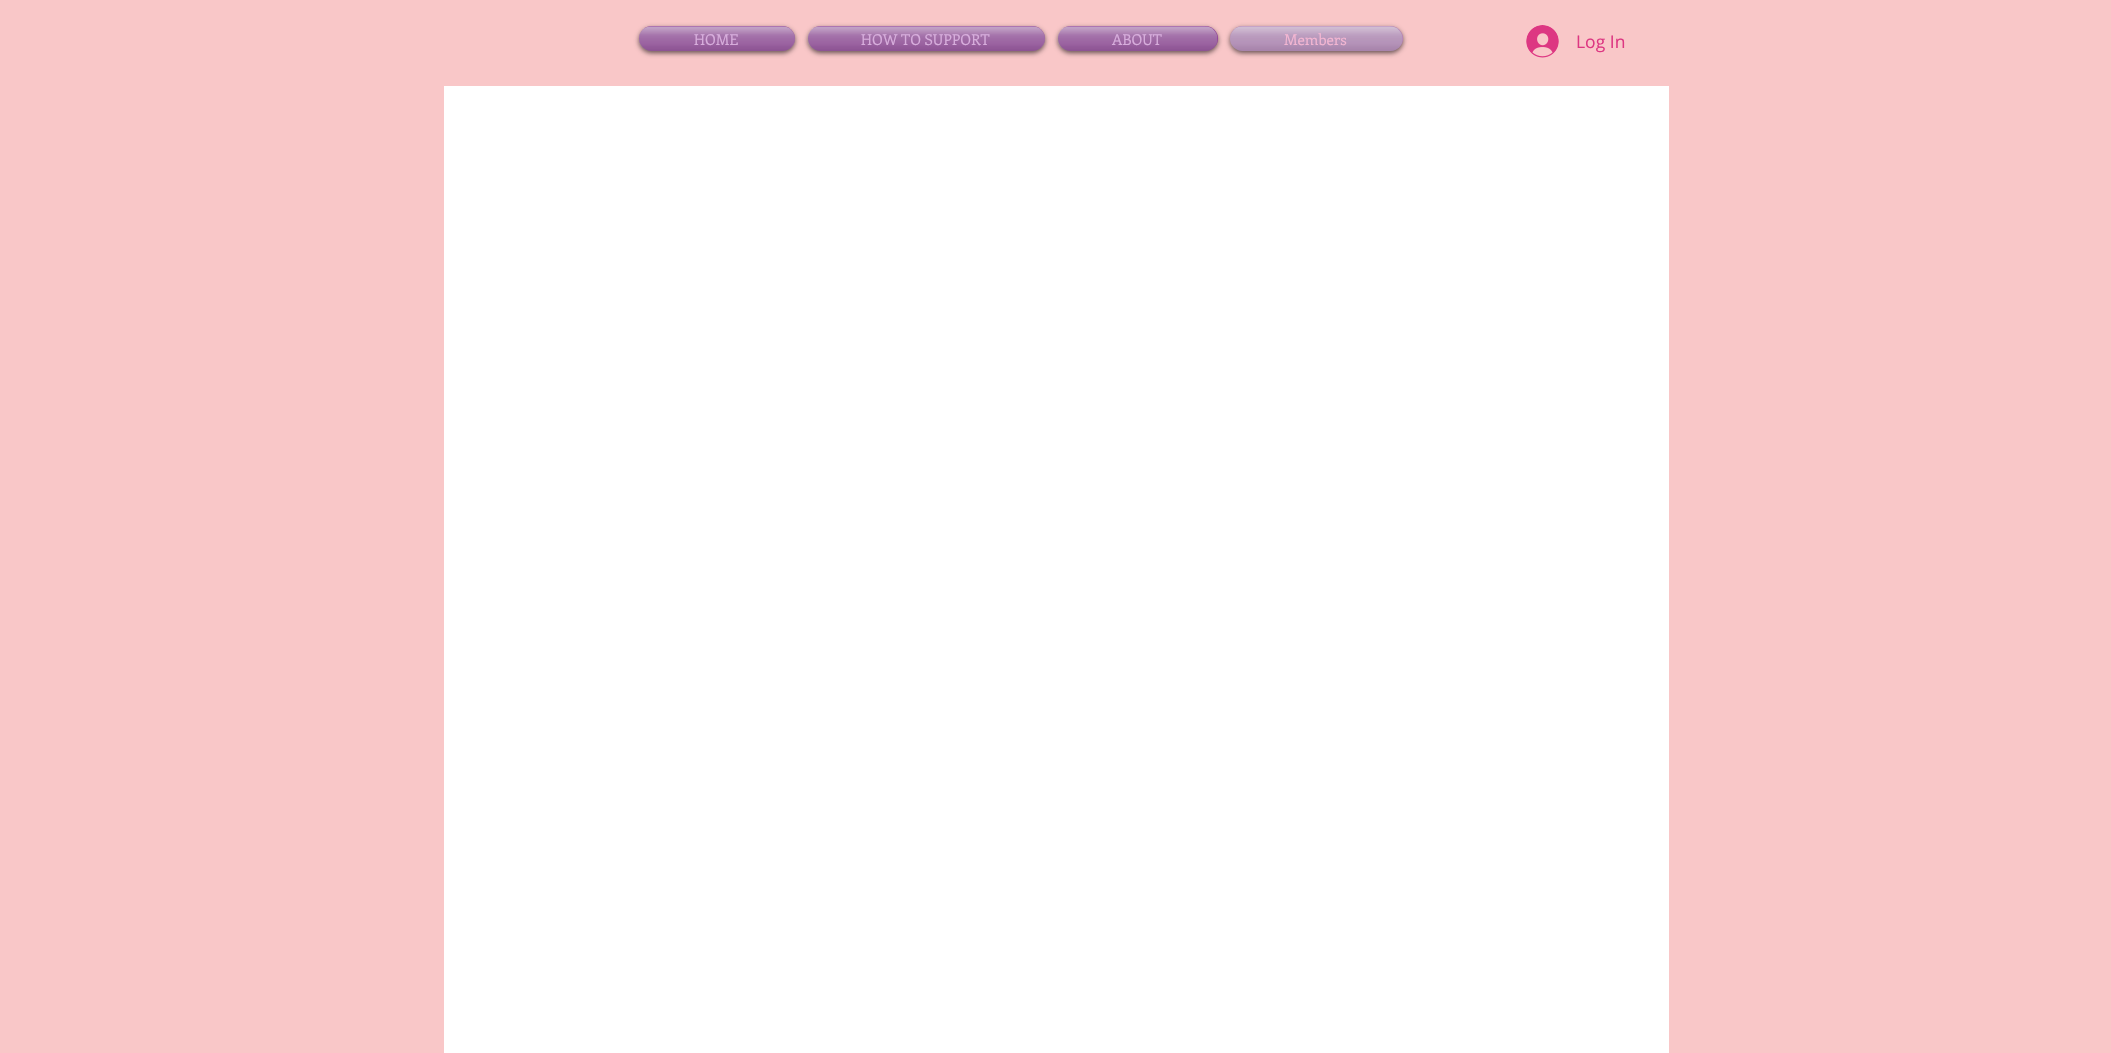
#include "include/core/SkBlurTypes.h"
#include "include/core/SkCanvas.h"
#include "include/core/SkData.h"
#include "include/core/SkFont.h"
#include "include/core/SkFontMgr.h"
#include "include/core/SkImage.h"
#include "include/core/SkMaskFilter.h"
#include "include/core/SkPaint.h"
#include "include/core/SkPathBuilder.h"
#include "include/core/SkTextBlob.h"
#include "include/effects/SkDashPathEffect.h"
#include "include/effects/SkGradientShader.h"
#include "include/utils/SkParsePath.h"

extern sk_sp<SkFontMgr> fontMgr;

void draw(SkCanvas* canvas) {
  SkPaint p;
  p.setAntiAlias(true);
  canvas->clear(SkColorSetRGB(249, 199, 200));
  p.setColor(SkColorSetARGB(153, 0, 0, 0));
  p.setMaskFilter(SkMaskFilter::MakeBlur(kNormal_SkBlurStyle, 2.5f));
  canvas->drawRoundRect(SkRect::MakeLTRB(639, 28, 795, 53), 12.5f, 12.5f, p);
  p.setMaskFilter(nullptr);
  p.setColor(SkColorSetRGB(140, 54, 150));
  canvas->drawRoundRect(SkRect::MakeLTRB(639, 26, 795, 51), 12.5f, 12.5f, p);
  canvas->drawImageRect(SkImages::DeferredFromEncodedData(SkData::MakeFromFileName("images/1.png")), SkRect::MakeLTRB(639, 26, 795, 51), SkSamplingOptions());
  canvas->drawImageRect(SkImages::DeferredFromEncodedData(SkData::MakeFromFileName("images/2.png")), SkRect::MakeLTRB(639, 26, 795, 51), SkSamplingOptions());
  p.setColor(SkColorSetARGB(153, 0, 0, 0));
  p.setMaskFilter(SkMaskFilter::MakeBlur(kNormal_SkBlurStyle, 2.5f));
  canvas->drawRoundRect(SkRect::MakeLTRB(808, 28, 1045, 53), 12.5f, 12.5f, p);
  p.setMaskFilter(nullptr);
  p.setColor(SkColorSetRGB(140, 54, 150));
  canvas->drawRoundRect(SkRect::MakeLTRB(808, 26, 1045, 51), 12.5f, 12.5f, p);
  canvas->drawImageRect(SkImages::DeferredFromEncodedData(SkData::MakeFromFileName("images/3.png")), SkRect::MakeLTRB(807, 26, 1045, 51), SkSamplingOptions());
  canvas->drawImageRect(SkImages::DeferredFromEncodedData(SkData::MakeFromFileName("images/4.png")), SkRect::MakeLTRB(807, 26, 1045, 51), SkSamplingOptions());
  p.setColor(SkColorSetARGB(153, 0, 0, 0));
  p.setMaskFilter(SkMaskFilter::MakeBlur(kNormal_SkBlurStyle, 2.5f));
  canvas->drawRoundRect(SkRect::MakeLTRB(1058, 28, 1218, 53), 12.5f, 12.5f, p);
  p.setMaskFilter(nullptr);
  p.setColor(SkColorSetRGB(140, 54, 150));
  canvas->drawRoundRect(SkRect::MakeLTRB(1058, 26, 1218, 51), 12.5f, 12.5f, p);
  canvas->drawImageRect(SkImages::DeferredFromEncodedData(SkData::MakeFromFileName("images/5.png")), SkRect::MakeLTRB(1057, 26, 1218, 51), SkSamplingOptions());
  canvas->drawImageRect(SkImages::DeferredFromEncodedData(SkData::MakeFromFileName("images/6.png")), SkRect::MakeLTRB(1057, 26, 1217, 51), SkSamplingOptions());
  p.setColor(SkColorSetARGB(153, 0, 0, 0));
  p.setMaskFilter(SkMaskFilter::MakeBlur(kNormal_SkBlurStyle, 2.5f));
  canvas->drawRoundRect(SkRect::MakeLTRB(1230, 28, 1403, 53), 12.5f, 12.5f, p);
  p.setMaskFilter(nullptr);
  p.setColor(SkColorSetRGB(179, 126, 185));
  canvas->drawRoundRect(SkRect::MakeLTRB(1230, 26, 1403, 51), 12.5f, 12.5f, p);
  canvas->drawImageRect(SkImages::DeferredFromEncodedData(SkData::MakeFromFileName("images/7.png")), SkRect::MakeLTRB(1230, 26, 1403, 51), SkSamplingOptions());
  canvas->drawImageRect(SkImages::DeferredFromEncodedData(SkData::MakeFromFileName("images/8.png")), SkRect::MakeLTRB(1230, 26, 1402, 51), SkSamplingOptions());
  canvas->drawImageRect(SkImages::DeferredFromEncodedData(SkData::MakeFromFileName("images/9.png")), SkRect::MakeLTRB(1526, 25, 1559, 58), SkSamplingOptions());
  p.setColor(SK_ColorWHITE);
  canvas->drawRect(SkRect::MakeLTRB(444, 86, 1669, 1053), p);
  SkFont font1(fontMgr->matchFamilyStyle("Enriqueta", SkFontStyle::Normal()), 15);
  font1.setSubpixel(true);
  p.setColor(SkColorSetRGB(215, 173, 220));
  canvas->drawString("HOME", 694, 45, font1, p);
  canvas->drawString("HOW TO SUPPORT", 861, 45, font1, p);
  canvas->drawString("ABOUT", 1112, 45, font1, p);
  p.setColor(SkColorSetRGB(243, 182, 210));
  canvas->drawString("Members", 1284, 45, font1, p);
  SkFont font2(fontMgr->matchFamilyStyle("Open Sans", SkFontStyle::Normal()), 17.5f);
  font2.setSubpixel(true);
  p.setColor(SkColorSetRGB(221, 55, 130));
  canvas->drawString("Log In", 1576, 48, font2, p);
}
